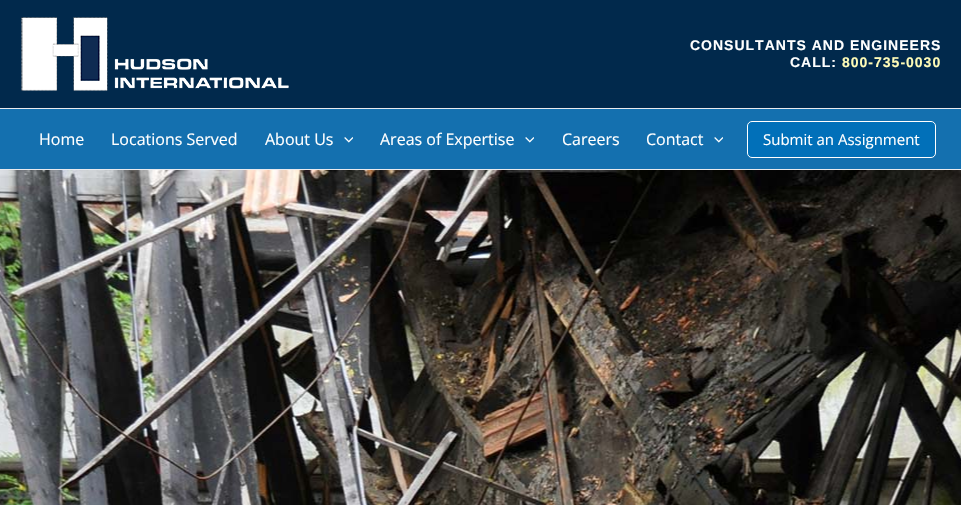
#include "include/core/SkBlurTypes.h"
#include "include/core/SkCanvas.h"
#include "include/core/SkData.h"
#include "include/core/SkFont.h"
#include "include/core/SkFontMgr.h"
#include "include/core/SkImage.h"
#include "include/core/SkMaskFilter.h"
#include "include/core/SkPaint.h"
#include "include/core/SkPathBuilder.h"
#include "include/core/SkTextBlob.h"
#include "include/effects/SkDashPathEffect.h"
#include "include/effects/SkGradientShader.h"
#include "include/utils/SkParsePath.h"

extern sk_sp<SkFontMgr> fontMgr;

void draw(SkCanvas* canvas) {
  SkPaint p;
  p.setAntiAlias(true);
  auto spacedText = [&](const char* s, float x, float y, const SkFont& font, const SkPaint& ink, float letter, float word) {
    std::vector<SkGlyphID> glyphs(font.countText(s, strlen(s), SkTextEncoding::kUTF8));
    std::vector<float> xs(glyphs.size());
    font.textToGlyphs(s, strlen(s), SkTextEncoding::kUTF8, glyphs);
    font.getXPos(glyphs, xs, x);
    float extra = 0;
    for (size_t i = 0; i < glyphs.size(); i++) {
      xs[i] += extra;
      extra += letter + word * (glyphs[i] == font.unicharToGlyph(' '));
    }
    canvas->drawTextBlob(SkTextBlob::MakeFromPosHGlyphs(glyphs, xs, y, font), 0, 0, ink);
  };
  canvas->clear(SK_ColorWHITE);
  p.setColor(SkColorSetRGB(1, 41, 76));
  canvas->drawRect(SkRect::MakeLTRB(0, 0, 961, 108), p);
  p.setColor(SkColorSetRGB(234, 234, 238));
  canvas->drawRect(SkRect::MakeLTRB(0, 108, 961, 109), p);
  canvas->drawImageRect(SkImages::DeferredFromEncodedData(SkData::MakeFromFileName("images/1.png")), SkRect::MakeLTRB(21, 17, 289, 91), SkSamplingOptions());
  p.setColor(SkColorSetRGB(20, 112, 175));
  canvas->drawRect(SkRect::MakeLTRB(0, 109, 961, 169), p);
  p.setColor(SkColorSetRGB(234, 234, 238));
  canvas->drawRect(SkRect::MakeLTRB(0, 169, 961, 170), p);
  canvas->drawImageRect(SkImages::DeferredFromEncodedData(SkData::MakeFromFileName("images/2.png")), SkRect::MakeLTRB(344, 137, 353, 143), SkSamplingOptions());
  canvas->drawImageRect(SkImages::DeferredFromEncodedData(SkData::MakeFromFileName("images/2.png")), SkRect::MakeLTRB(525, 137, 534, 143), SkSamplingOptions());
  canvas->drawImageRect(SkImages::DeferredFromEncodedData(SkData::MakeFromFileName("images/2.png")), SkRect::MakeLTRB(714, 137, 723, 143), SkSamplingOptions());
  p.setColor(SkColorSetRGB(1, 112, 185));
  canvas->drawRoundRect(SkRect::MakeLTRB(747.5f, 121.5f, 935.5f, 157.5f), 4.5f, 4.5f, p);
  p.setStyle(SkPaint::kStroke_Style);
  p.setStrokeWidth(1);
  p.setColor(SK_ColorWHITE);
  canvas->drawRoundRect(SkRect::MakeLTRB(747.5f, 121.5f, 935.5f, 157.5f), 4.5f, 4.5f, p);
  canvas->drawImageRect(SkImages::DeferredFromEncodedData(SkData::MakeFromFileName("images/3.png")), SkRect::MakeLTRB(0, 170, 961, 505), SkSamplingOptions());
  SkFont font1(fontMgr->matchFamilyStyle("Liberation Sans", SkFontStyle::Bold()), 14);
  font1.setSubpixel(true);
  p.setStyle(SkPaint::kFill_Style);
  spacedText("CONSULTANTS AND ENGINEERS", 690, 50, font1, p, 1, 0);
  spacedText("CALL:", 790, 67, font1, p, 1, 0);
  p.setColor(SkColorSetRGB(255, 252, 183));
  spacedText("800-735-0030", 842, 67, font1, p, 1, 0);
  SkFont font2(fontMgr->matchFamilyStyle("Open Sans", SkFontStyle::Normal()), 16);
  font2.setSubpixel(true);
  p.setColor(SK_ColorWHITE);
  canvas->drawString("Home", 39, 145, font2, p);
  canvas->drawString("Locations Served", 111, 145, font2, p);
  canvas->drawString("About Us", 265, 145, font2, p);
  canvas->drawString("Areas of Expertise", 380, 145, font2, p);
  canvas->drawString("Careers", 562, 145, font2, p);
  canvas->drawString("Contact", 646, 145, font2, p);
  SkFont font3(fontMgr->matchFamilyStyle("Open Sans", SkFontStyle::Normal()), 15);
  font3.setSubpixel(true);
  canvas->drawString("Submit an Assignment", 763, 145, font3, p);
}
